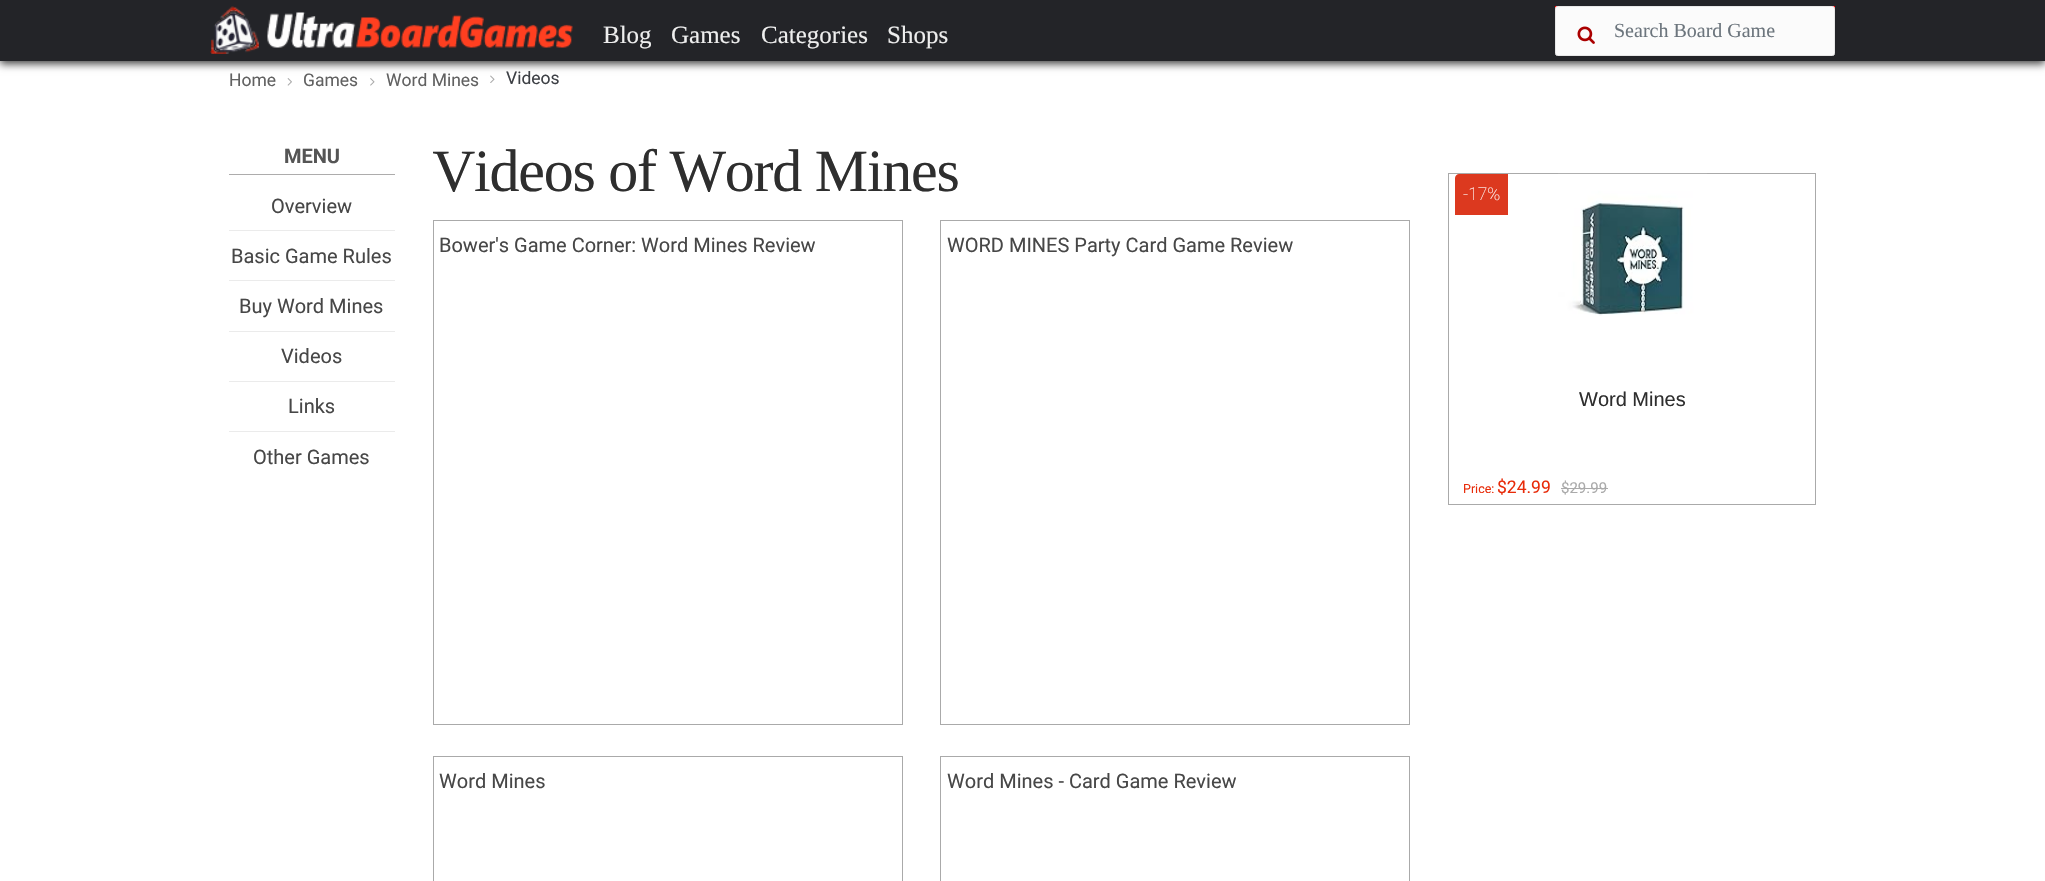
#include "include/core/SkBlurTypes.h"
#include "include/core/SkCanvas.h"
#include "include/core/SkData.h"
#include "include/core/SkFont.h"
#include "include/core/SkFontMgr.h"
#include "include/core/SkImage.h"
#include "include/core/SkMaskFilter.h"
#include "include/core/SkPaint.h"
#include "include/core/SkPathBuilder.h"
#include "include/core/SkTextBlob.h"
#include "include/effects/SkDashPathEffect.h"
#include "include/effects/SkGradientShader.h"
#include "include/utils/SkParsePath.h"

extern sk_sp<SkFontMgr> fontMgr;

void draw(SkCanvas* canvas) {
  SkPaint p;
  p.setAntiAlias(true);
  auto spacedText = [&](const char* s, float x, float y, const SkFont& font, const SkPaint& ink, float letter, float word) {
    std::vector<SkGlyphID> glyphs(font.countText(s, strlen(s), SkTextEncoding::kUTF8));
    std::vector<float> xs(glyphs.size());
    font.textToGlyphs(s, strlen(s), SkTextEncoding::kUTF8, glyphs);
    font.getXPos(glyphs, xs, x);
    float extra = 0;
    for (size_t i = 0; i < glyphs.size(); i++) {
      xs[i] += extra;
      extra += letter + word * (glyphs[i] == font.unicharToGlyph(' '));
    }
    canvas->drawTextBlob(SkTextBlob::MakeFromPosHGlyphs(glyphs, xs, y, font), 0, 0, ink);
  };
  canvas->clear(SK_ColorWHITE);
  canvas->drawImageRect(SkImages::DeferredFromEncodedData(SkData::MakeFromFileName("images/5.png")), SkRect::MakeLTRB(490, 75, 495, 83), SkSamplingOptions());
  p.setColor(SkColorSetRGB(68, 68, 68));
  p.setMaskFilter(SkMaskFilter::MakeBlur(kNormal_SkBlurStyle, 4));
  canvas->drawRect(SkRect::MakeLTRB(0, 3, 2045, 64), p);
  p.setMaskFilter(nullptr);
  p.setColor(SkColorSetRGB(35, 36, 40));
  canvas->drawRect(SkRect::MakeLTRB(0, 0, 2045, 61), p);
  canvas->drawImageRect(SkImages::DeferredFromEncodedData(SkData::MakeFromFileName("images/1.png")), SkRect::MakeLTRB(210, 6, 573, 54), SkSamplingOptions());
  p.setColor(SkColorSetRGB(255, 0, 0));
  canvas->drawRect(SkRect::MakeLTRB(1555, 6, 1835, 9), p);
  p.setColor(SkColorSetRGB(251, 251, 251));
  canvas->drawRoundRect(SkRect::MakeLTRB(1555.5f, 6.5f, 1834.5f, 55.5f), 2, 2, p);
  p.setStyle(SkPaint::kStroke_Style);
  p.setStrokeWidth(1);
  p.setColor(SkColorSetRGB(232, 232, 232));
  canvas->drawRoundRect(SkRect::MakeLTRB(1555.5f, 6.5f, 1834.5f, 55.5f), 2, 2, p);
  canvas->drawImageRect(SkImages::DeferredFromEncodedData(SkData::MakeFromFileName("images/2.png")), SkRect::MakeLTRB(1577, 26, 1595, 44), SkSamplingOptions());
  canvas->drawImageRect(SkImages::DeferredFromEncodedData(SkData::MakeFromFileName("images/3.png")), SkRect::MakeLTRB(287, 78, 292, 86), SkSamplingOptions());
  canvas->drawImageRect(SkImages::DeferredFromEncodedData(SkData::MakeFromFileName("images/4.png")), SkRect::MakeLTRB(370, 78, 375, 86), SkSamplingOptions());
  p.setStyle(SkPaint::kFill_Style);
  p.setColor(SkColorSetRGB(173, 172, 172));
  canvas->drawRect(SkRect::MakeLTRB(229, 174, 395, 175), p);
  p.setColor(SkColorSetRGB(235, 235, 235));
  canvas->drawRect(SkRect::MakeLTRB(229, 230, 395, 231), p);
  canvas->drawRect(SkRect::MakeLTRB(229, 280, 395, 281), p);
  canvas->drawRect(SkRect::MakeLTRB(229, 331, 395, 332), p);
  canvas->drawRect(SkRect::MakeLTRB(229, 381, 395, 382), p);
  canvas->drawRect(SkRect::MakeLTRB(229, 431, 395, 432), p);
  p.setStyle(SkPaint::kStroke_Style);
  p.setColor(SkColorSetRGB(170, 170, 170));
  canvas->drawRect(SkRect::MakeLTRB(433.5f, 220.5f, 902.5f, 724.5f), p);
  canvas->drawRect(SkRect::MakeLTRB(940.5f, 220.5f, 1409.5f, 724.5f), p);
  canvas->drawRect(SkRect::MakeLTRB(433.5f, 756.5f, 902.5f, 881.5f), p);
  canvas->drawRect(SkRect::MakeLTRB(940.5f, 756.5f, 1409.5f, 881.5f), p);
  canvas->drawRect(SkRect::MakeLTRB(1448.5f, 173.5f, 1815.5f, 504.5f), p);
  p.setStyle(SkPaint::kFill_Style);
  p.setColor(SkColorSetRGB(220, 57, 31));
  canvas->drawPath(SkPathBuilder().moveTo(1459, 174).lineTo(1508, 174).lineTo(1508, 215).lineTo(1455, 215).lineTo(1455, 178).cubicTo(1455, 176, 1457, 174, 1459, 174).close().detach(), p);
  canvas->drawImageRect(SkImages::DeferredFromEncodedData(SkData::MakeFromFileName("images/6.png")), SkRect::MakeLTRB(1558, 173, 1707, 316), SkSamplingOptions());
  p.setColor(SkColorSetRGB(170, 170, 170));
  canvas->drawRect(SkRect::MakeLTRB(1561, 488, 1608, 489), p);
  SkFont font1(fontMgr->matchFamilyStyle("Liberation Serif", SkFontStyle::Normal()), 25);
  font1.setSubpixel(true);
  p.setColor(SkColorSetRGB(238, 238, 238));
  canvas->drawString("Blog", 603, 43, font1, p);
  canvas->drawString("Games", 671, 43, font1, p);
  canvas->drawString("Categories", 761, 43, font1, p);
  canvas->drawString("Shops", 887, 43, font1, p);
  SkFont font2(fontMgr->matchFamilyStyle("Liberation Serif", SkFontStyle::Normal()), 20);
  font2.setSubpixel(true);
  p.setColor(SkColorSetRGB(108, 117, 125));
  canvas->drawString("Search Board Game", 1614, 37, font2, p);
  SkFont font3(fontMgr->matchFamilyStyle("Roboto", SkFontStyle::Normal()), 17.5f);
  font3.setSubpixel(true);
  p.setColor(SkColorSetRGB(97, 97, 97));
  canvas->drawString("Home", 229, 86, font3, p);
  canvas->drawString("Games", 303, 86, font3, p);
  canvas->drawString("Word Mines", 386, 86, font3, p);
  p.setColor(SkColorSetRGB(61, 64, 69));
  canvas->drawString("Videos", 506, 84, font3, p);
  SkFont font4(fontMgr->matchFamilyStyle("Roboto", SkFontStyle::Bold()), 20);
  font4.setSubpixel(true);
  p.setColor(SkColorSetRGB(85, 85, 85));
  canvas->drawString("MENU", 284, 163, font4, p);
  SkFont font5(fontMgr->matchFamilyStyle("Roboto", SkFontStyle::Normal()), 20);
  font5.setSubpixel(true);
  p.setColor(SkColorSetRGB(71, 71, 71));
  canvas->drawString("Overview", 271, 213, font5, p);
  canvas->drawString("Basic Game Rules", 231, 263, font5, p);
  canvas->drawString("Buy Word Mines", 239, 313, font5, p);
  canvas->drawString("Videos", 281, 363, font5, p);
  canvas->drawString("Links", 288, 413, font5, p);
  canvas->drawString("Other Games", 253, 464, font5, p);
  canvas->save();
  canvas->clipRect(SkRect::MakeLTRB(433, 116, 1410, 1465));
  SkFont font6(fontMgr->matchFamilyStyle("Liberation Serif", SkFontStyle::Normal()), 60);
  font6.setSubpixel(true);
  p.setColor(SkColorSetRGB(46, 46, 46));
  spacedText("Videos of Word Mines", 432, 191, font6, p, -1.25f, 0);
  canvas->restore();
  p.setColor(SkColorSetRGB(71, 71, 71));
  canvas->drawString("Bower's Game Corner: Word Mines Review", 439, 252, font5, p);
  canvas->drawString("WORD MINES Party Card Game Review", 947, 252, font5, p);
  canvas->drawString("Word Mines", 439, 788, font5, p);
  canvas->drawString("Word Mines - Card Game Review", 947, 788, font5, p);
  SkFont font7(fontMgr->matchFamilyStyle("Roboto", SkFontStyle(100, SkFontStyle::kNormal_Width, SkFontStyle::kUpright_Slant)), 17.5f);
  font7.setSubpixel(true);
  p.setColor(SK_ColorWHITE);
  canvas->drawString("-17%", 1463, 200, font7, p);
  SkFont font8(fontMgr->matchFamilyStyle("Liberation Sans", SkFontStyle::Normal()), 20);
  font8.setSubpixel(true);
  p.setColor(SkColorSetRGB(46, 46, 46));
  canvas->drawString("Word Mines", 1579, 406, font8, p);
  SkFont font9(fontMgr->matchFamilyStyle("Roboto", SkFontStyle::Normal()), 12.5f);
  font9.setSubpixel(true);
  p.setColor(SkColorSetRGB(232, 43, 9));
  canvas->drawString("Price:", 1463, 493, font9, p);
  canvas->drawString("$24.99", 1497, 493, font3, p);
  SkFont font10(fontMgr->matchFamilyStyle("Roboto", SkFontStyle::Normal()), 15);
  font10.setSubpixel(true);
  p.setColor(SkColorSetRGB(170, 170, 170));
  canvas->drawString("$29.99", 1561, 493, font10, p);
}
